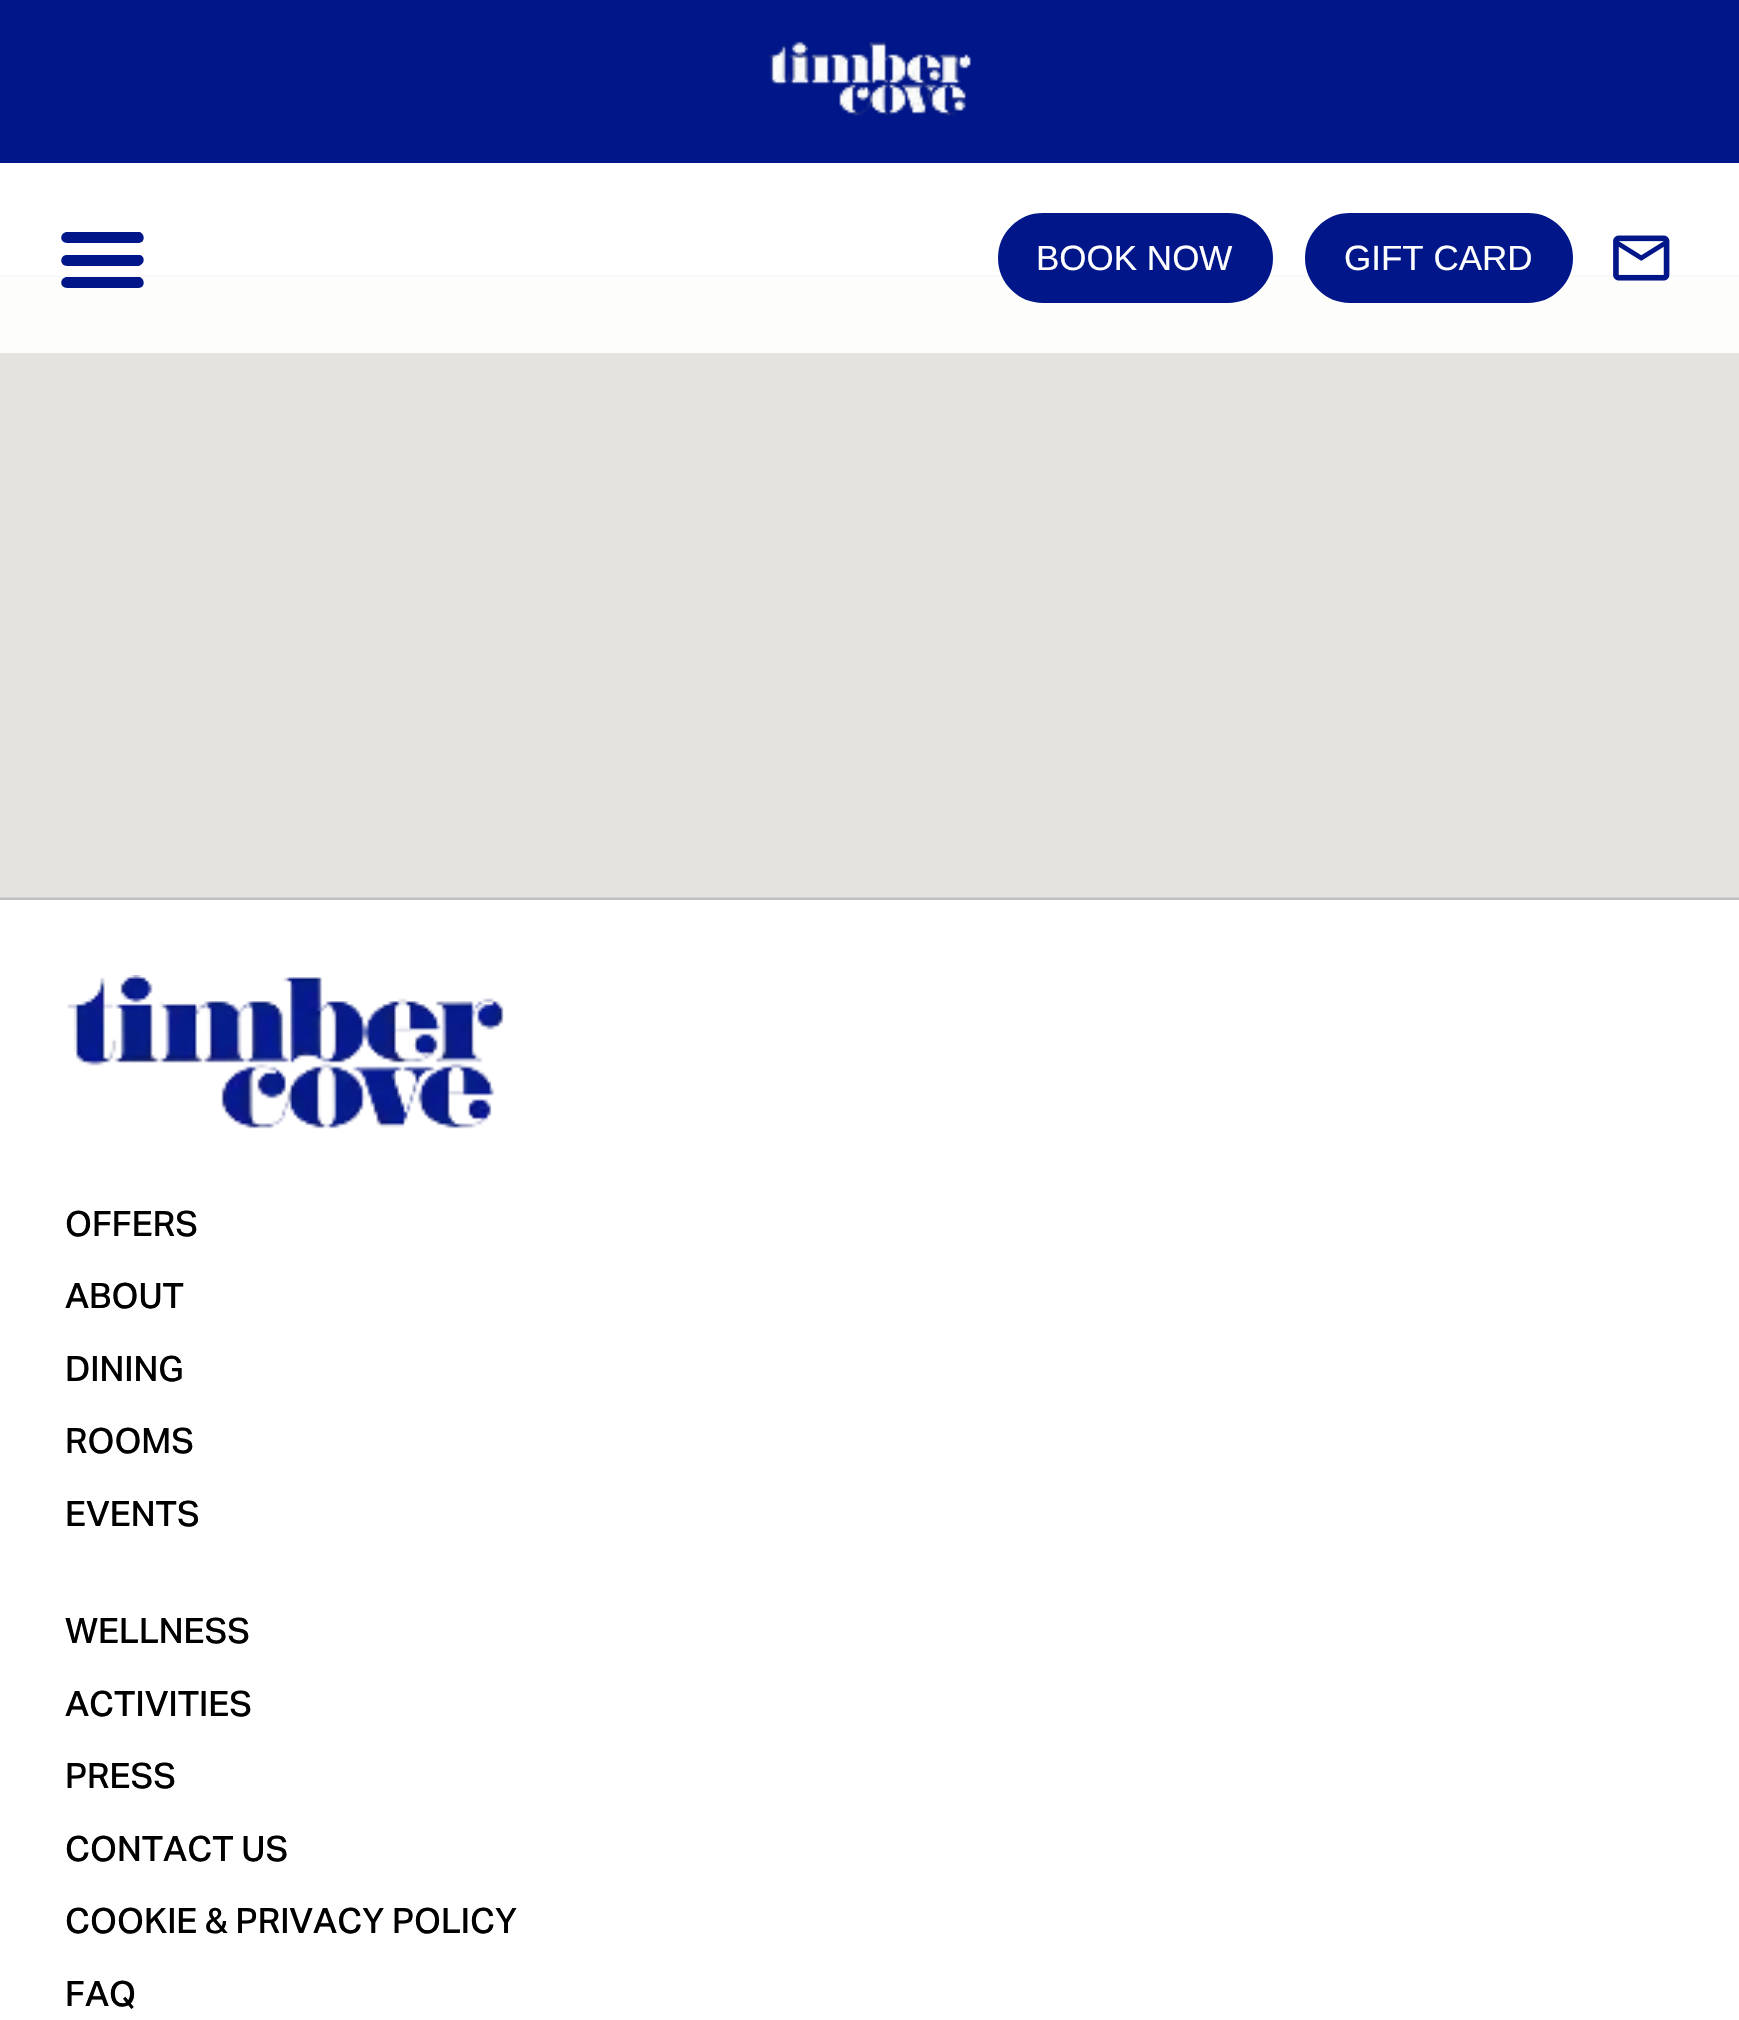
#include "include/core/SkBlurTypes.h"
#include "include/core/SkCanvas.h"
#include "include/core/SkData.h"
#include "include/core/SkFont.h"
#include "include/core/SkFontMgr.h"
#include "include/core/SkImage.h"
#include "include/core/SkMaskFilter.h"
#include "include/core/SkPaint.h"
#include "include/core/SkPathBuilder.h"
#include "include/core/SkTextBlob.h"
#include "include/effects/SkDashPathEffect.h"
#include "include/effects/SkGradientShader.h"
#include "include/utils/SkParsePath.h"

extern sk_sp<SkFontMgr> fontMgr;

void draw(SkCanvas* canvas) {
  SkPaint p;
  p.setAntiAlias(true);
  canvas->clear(SK_ColorWHITE);
  canvas->drawImageRect(SkImages::DeferredFromEncodedData(SkData::MakeFromFileName("images/3.png")), SkRect::MakeLTRB(0, 275, 1739, 900), SkSamplingOptions());
  p.setColor(SkColorSetARGB(230, 255, 255, 255));
  canvas->drawRect(SkRect::MakeLTRB(0, 275, 1739, 353), p);
  p.setColor(SkColorSetRGB(0, 22, 137));
  canvas->drawRect(SkRect::MakeLTRB(0, 0, 1739, 163), p);
  canvas->drawImageRect(SkImages::DeferredFromEncodedData(SkData::MakeFromFileName("images/1.png")), SkRect::MakeLTRB(767, 41, 972, 122), SkSamplingOptions());
  canvas->drawPath(SkPathBuilder().moveTo(67, 243).lineTo(139, 243).lineTo(142, 242).cubicTo(145, 239, 144, 234, 140, 232).lineTo(66, 232).cubicTo(59, 234, 60, 243, 67, 243).close().moveTo(67, 266).lineTo(139, 266).lineTo(142, 264).cubicTo(145, 261, 144, 256, 140, 255).lineTo(66, 255).cubicTo(59, 256, 60, 266, 67, 266).close().moveTo(67, 288).lineTo(139, 288).lineTo(142, 287).cubicTo(145, 284, 144, 279, 140, 277).lineTo(66, 277).cubicTo(59, 279, 60, 288, 67, 288).close().detach(), p);
  canvas->drawRoundRect(SkRect::MakeLTRB(999.5f, 214.5f, 1271.5f, 301.5f), 43.5f, 43.5f, p);
  p.setStyle(SkPaint::kStroke_Style);
  p.setStrokeWidth(3);
  canvas->drawRoundRect(SkRect::MakeLTRB(999.5f, 214.5f, 1271.5f, 301.5f), 43.5f, 43.5f, p);
  p.setStyle(SkPaint::kFill_Style);
  canvas->drawRoundRect(SkRect::MakeLTRB(1306.5f, 214.5f, 1571.5f, 301.5f), 43.5f, 43.5f, p);
  p.setStyle(SkPaint::kStroke_Style);
  canvas->drawRoundRect(SkRect::MakeLTRB(1306.5f, 214.5f, 1571.5f, 301.5f), 43.5f, 43.5f, p);
  canvas->drawImageRect(SkImages::DeferredFromEncodedData(SkData::MakeFromFileName("images/2.png")), SkRect::MakeLTRB(1613, 235, 1670, 281), SkSamplingOptions());
  canvas->drawImageRect(SkImages::DeferredFromEncodedData(SkData::MakeFromFileName("images/4.png")), SkRect::MakeLTRB(67, 975, 504, 1129), SkSamplingOptions());
  SkFont font1(fontMgr->matchFamilyStyle("Liberation Sans", SkFontStyle::Normal()), 35);
  font1.setSubpixel(true);
  p.setStyle(SkPaint::kFill_Style);
  p.setColor(SK_ColorWHITE);
  canvas->drawString("BOOK NOW", 1036, 270, font1, p);
  canvas->drawString("GIFT CARD", 1344, 270, font1, p);
  SkFont font2(fontMgr->matchFamilyStyle("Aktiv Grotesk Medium", SkFontStyle(500, SkFontStyle::kNormal_Width, SkFontStyle::kUpright_Slant)), 35);
  font2.setSubpixel(true);
  p.setColor(SK_ColorBLACK);
  canvas->drawString("OFFERS", 65, 1236, font2, p);
  canvas->drawString("ABOUT", 65, 1308, font2, p);
  canvas->drawString("DINING", 65, 1381, font2, p);
  canvas->drawString("ROOMS", 65, 1453, font2, p);
  canvas->drawString("EVENTS", 65, 1526, font2, p);
  canvas->drawString("WELLNESS", 65, 1643, font2, p);
  canvas->drawString("ACTIVITIES", 65, 1716, font2, p);
  canvas->drawString("PRESS", 65, 1788, font2, p);
  canvas->drawString("CONTACT US", 65, 1861, font2, p);
  canvas->drawString("COOKIE & PRIVACY POLICY", 65, 1933, font2, p);
  canvas->drawString("FAQ", 65, 2006, font2, p);
}
